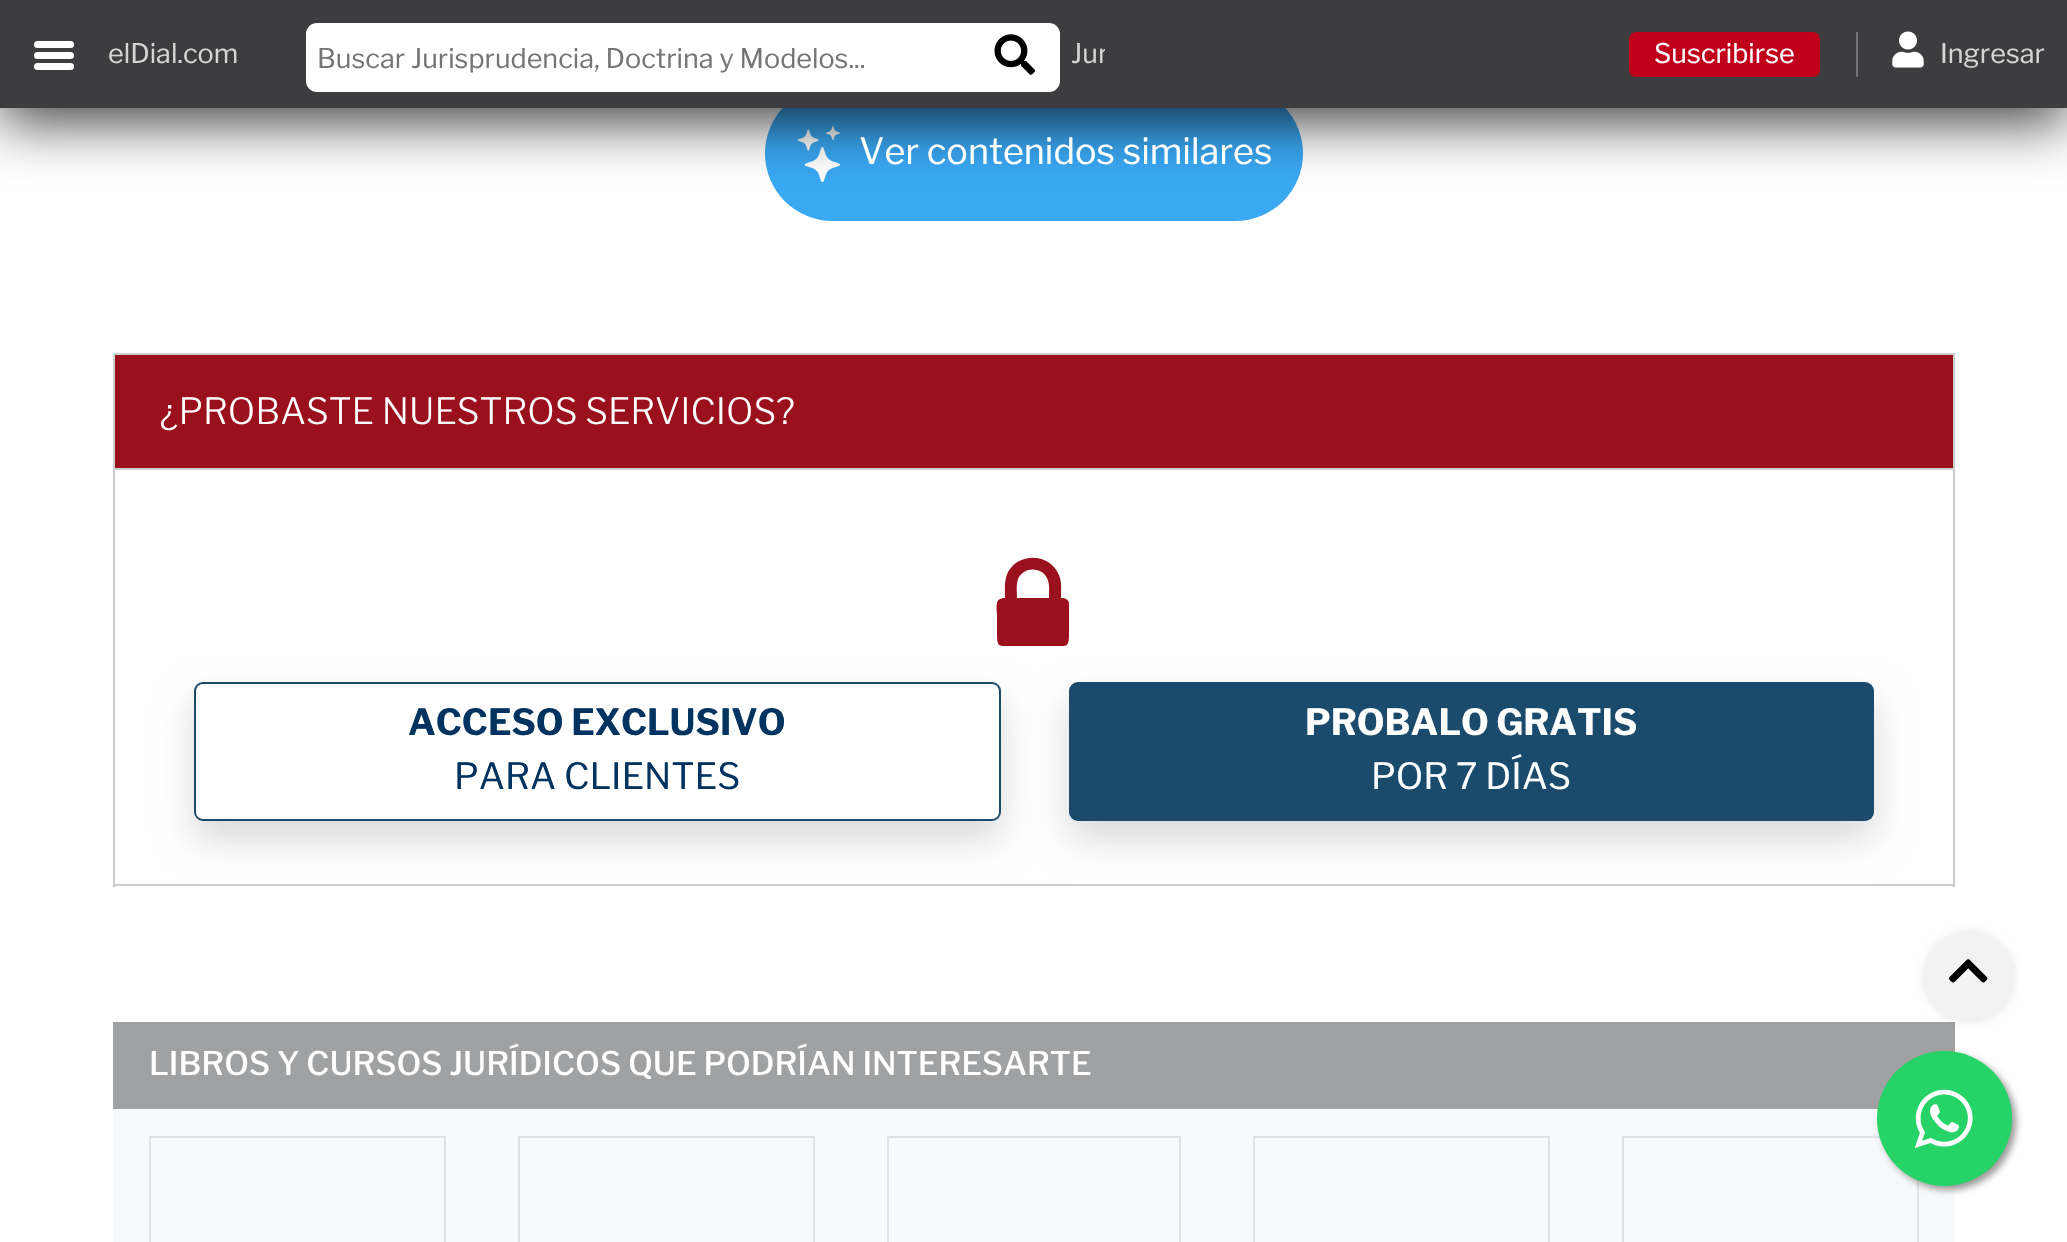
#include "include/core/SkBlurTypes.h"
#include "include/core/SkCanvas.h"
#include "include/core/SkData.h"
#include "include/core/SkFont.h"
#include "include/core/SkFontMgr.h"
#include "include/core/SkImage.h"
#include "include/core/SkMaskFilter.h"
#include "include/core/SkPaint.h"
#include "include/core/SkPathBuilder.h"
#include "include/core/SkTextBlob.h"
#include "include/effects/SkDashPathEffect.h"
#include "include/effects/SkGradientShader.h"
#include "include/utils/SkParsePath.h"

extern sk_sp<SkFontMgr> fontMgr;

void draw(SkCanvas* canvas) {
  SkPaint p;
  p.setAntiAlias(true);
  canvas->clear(SK_ColorWHITE);
  p.setColor(SkColorSetRGB(58, 168, 243));
  canvas->drawRoundRect(SkRect::MakeLTRB(765, 86, 1303, 221), 67.5f, 67.5f, p);
  canvas->drawImageRect(SkImages::DeferredFromEncodedData(SkData::MakeFromFileName("images/5.png")), SkRect::MakeLTRB(797, 126, 840, 182), SkSamplingOptions());
  p.setColor(SkColorSetARGB(191, 0, 0, 0));
  p.setMaskFilter(SkMaskFilter::MakeBlur(kNormal_SkBlurStyle, 28));
  canvas->drawRect(SkRect::MakeLTRB(0, 14, 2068, 122), p);
  p.setMaskFilter(nullptr);
  p.setColor(SkColorSetRGB(61, 61, 63));
  canvas->drawRect(SkRect::MakeLTRB(0, 0, 2067, 108), p);
  p.setColor(SK_ColorWHITE);
  canvas->drawRoundRect(SkRect::MakeLTRB(34, 41, 74, 48), 3.5f, 3.5f, p);
  canvas->drawRoundRect(SkRect::MakeLTRB(34, 52, 74, 59), 3.5f, 3.5f, p);
  canvas->drawRoundRect(SkRect::MakeLTRB(34, 63, 74, 70), 3.5f, 3.5f, p);
  canvas->drawRoundRect(SkRect::MakeLTRB(306, 23, 1060, 92), 11, 11, p);
  canvas->drawImageRect(SkImages::DeferredFromEncodedData(SkData::MakeFromFileName("images/1.png")), SkRect::MakeLTRB(994, 34, 1035, 75), SkSamplingOptions());
  p.setColor(SkColorSetRGB(116, 117, 119));
  canvas->drawRect(SkRect::MakeLTRB(1856, 32, 1858, 77), p);
  p.setColor(SkColorSetRGB(192, 0, 27));
  canvas->drawRoundRect(SkRect::MakeLTRB(1630, 33, 1819, 76), 6, 6, p);
  p.setStyle(SkPaint::kStroke_Style);
  p.setStrokeWidth(2);
  canvas->drawRoundRect(SkRect::MakeLTRB(1630, 33, 1819, 76), 6, 6, p);
  canvas->drawImageRect(SkImages::DeferredFromEncodedData(SkData::MakeFromFileName("images/2.png")), SkRect::MakeLTRB(1892, 31, 1924, 68), SkSamplingOptions());
  p.setStyle(SkPaint::kFill_Style);
  p.setColor(SkColorSetRGB(160, 161, 162));
  canvas->drawRect(SkRect::MakeLTRB(113, 1022, 1955, 1109), p);
  p.setColor(SkColorSetARGB(26, 0, 0, 0));
  p.setMaskFilter(SkMaskFilter::MakeBlur(kNormal_SkBlurStyle, 4.5f));
  canvas->drawRoundRect(SkRect::MakeLTRB(1924, 932, 2014, 1022), 45, 45, p);
  p.setMaskFilter(nullptr);
  p.setColor(SkColorSetRGB(242, 242, 242));
  canvas->drawCircle(1969, 977, 45, p);
  canvas->drawImageRect(SkImages::DeferredFromEncodedData(SkData::MakeFromFileName("images/3.png")), SkRect::MakeLTRB(1949, 959, 1988, 983), SkSamplingOptions());
  p.setColor(SkColorSetRGB(248, 249, 250));
  canvas->drawRect(SkRect::MakeLTRB(113, 1109, 1955, 1242), p);
  p.setStyle(SkPaint::kStroke_Style);
  p.setColor(SkColorSetRGB(222, 226, 230));
  canvas->drawRect(SkRect::MakeLTRB(1623, 1137, 1918, 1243), p);
  p.setStyle(SkPaint::kFill_Style);
  p.setColor(SkColorSetRGB(153, 153, 153));
  p.setMaskFilter(SkMaskFilter::MakeBlur(kNormal_SkBlurStyle, 3.5f));
  canvas->drawRoundRect(SkRect::MakeLTRB(1881, 1055, 2016, 1190), 67.5f, 67.5f, p);
  p.setMaskFilter(nullptr);
  p.setColor(SkColorSetRGB(37, 211, 102));
  canvas->drawCircle(1944.5f, 1118.5f, 67.5f, p);
  canvas->drawImageRect(SkImages::DeferredFromEncodedData(SkData::MakeFromFileName("images/4.png")), SkRect::MakeLTRB(1914, 1089, 1973, 1148), SkSamplingOptions());
  p.setColor(SkColorSetRGB(154, 17, 29));
  canvas->drawRect(SkRect::MakeLTRB(114, 354, 1954, 469), p);
  p.setStyle(SkPaint::kStroke_Style);
  p.setColor(SkColorSetRGB(206, 207, 207));
  canvas->drawRect(SkRect::MakeLTRB(114, 354, 1954, 469), p);
  p.setStyle(SkPaint::kFill_Style);
  p.setColor(SkColorSetRGB(204, 204, 204));
  canvas->drawRect(SkRect::MakeLTRB(1953, 470, 1955, 887), p);
  canvas->drawRect(SkRect::MakeLTRB(113, 884, 1955, 886), p);
  canvas->drawRect(SkRect::MakeLTRB(113, 470, 115, 887), p);
  p.setColor(SkColorSetRGB(154, 17, 29));
  canvas->drawPath(SkPathBuilder().moveTo(1017, 598).lineTo(1049, 598).cubicTo(1049, 591, 1050, 584, 1047, 578).cubicTo(1041, 566, 1023, 567, 1018, 579).cubicTo(1016, 585, 1017, 592, 1017, 598).close().moveTo(1069, 604).lineTo(1069, 634).cubicTo(1069, 648, 1067, 646, 1053, 646).lineTo(1013, 646).cubicTo(999, 646, 997, 648, 997, 634).lineTo(997, 616).cubicTo(997, 607, 994, 598, 1005, 598).cubicTo(1005, 589, 1004, 580, 1008, 572).cubicTo(1019, 552, 1050, 553, 1059, 575).cubicTo(1062, 582, 1061, 590, 1061, 598).cubicTo(1065, 598, 1069, 599, 1069, 604).close().detach(), p);
  canvas->save();
  canvas->clipPath(SkPathBuilder(SkPathFillType::kEvenOdd).moveTo(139, 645).lineTo(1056, 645).lineTo(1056, 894).lineTo(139, 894).close().moveTo(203, 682).lineTo(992, 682).cubicTo(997, 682, 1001, 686, 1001, 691).lineTo(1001, 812).cubicTo(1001, 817, 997, 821, 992, 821).lineTo(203, 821).cubicTo(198, 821, 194, 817, 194, 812).lineTo(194, 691).cubicTo(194, 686, 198, 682, 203, 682).close().detach(), true);
  p.setColor(SkColorSetARGB(38, 0, 0, 0));
  p.setMaskFilter(SkMaskFilter::MakeBlur(kNormal_SkBlurStyle, 18));
  canvas->drawRoundRect(SkRect::MakeLTRB(194, 700, 1001, 839), 9, 9, p);
  p.setMaskFilter(nullptr);
  canvas->restore();
  p.setStyle(SkPaint::kStroke_Style);
  p.setColor(SkColorSetRGB(26, 75, 108));
  canvas->drawRoundRect(SkRect::MakeLTRB(195, 683, 1000, 820), 8, 8, p);
  p.setStyle(SkPaint::kFill_Style);
  p.setColor(SkColorSetARGB(38, 0, 0, 0));
  p.setMaskFilter(SkMaskFilter::MakeBlur(kNormal_SkBlurStyle, 18));
  canvas->drawRoundRect(SkRect::MakeLTRB(1069, 700, 1874, 839), 9, 9, p);
  p.setMaskFilter(nullptr);
  p.setColor(SkColorSetRGB(26, 75, 108));
  canvas->drawRoundRect(SkRect::MakeLTRB(1069, 682, 1874, 821), 9, 9, p);
  p.setStyle(SkPaint::kStroke_Style);
  p.setColor(SkColorSetRGB(222, 226, 230));
  canvas->drawRect(SkRect::MakeLTRB(150, 1137, 445, 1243), p);
  canvas->drawRect(SkRect::MakeLTRB(519, 1137, 814, 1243), p);
  canvas->drawRect(SkRect::MakeLTRB(888, 1137, 1180, 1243), p);
  canvas->drawRect(SkRect::MakeLTRB(1254, 1137, 1549, 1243), p);
  SkFont font1(fontMgr->matchFamilyStyle("Libre Franklin", SkFontStyle::Normal()), 27);
  font1.setSubpixel(true);
  p.setStyle(SkPaint::kFill_Style);
  p.setColor(SkColorSetRGB(213, 213, 213));
  canvas->drawString("elDial.com", 108, 63, font1, p);
  p.setColor(SkColorSetRGB(117, 117, 117));
  canvas->drawString("Buscar Jurisprudencia, Doctrina y Modelos...", 317, 68, font1, p);
  canvas->save();
  canvas->clipRect(SkRect::MakeLTRB(1060, 0, 1105, 108));
  p.setColor(SkColorSetRGB(213, 213, 213));
  canvas->drawString("Jur", 1071, 63, font1, p);
  canvas->restore();
  p.setColor(SK_ColorWHITE);
  canvas->drawString("Suscribirse", 1654, 63, font1, p);
  p.setColor(SkColorSetRGB(213, 213, 213));
  canvas->drawString("Ingresar", 1940, 63, font1, p);
  SkFont font2(fontMgr->matchFamilyStyle("Libre Franklin", SkFontStyle::Normal()), 36);
  font2.setSubpixel(true);
  p.setColor(SK_ColorWHITE);
  canvas->drawString("Ver contenidos similares", 859, 164, font2, p);
  SkFont font3(fontMgr->matchFamilyStyle("Libre Franklin", SkFontStyle(300, SkFontStyle::kNormal_Width, SkFontStyle::kUpright_Slant)), 36);
  font3.setSubpixel(true);
  canvas->drawString("¿PROBASTE NUESTROS SERVICIOS?", 160, 424, font3, p);
  SkFont font4(fontMgr->matchFamilyStyle("Libre Franklin", SkFontStyle::Bold()), 36);
  font4.setSubpixel(true);
  p.setColor(SkColorSetRGB(0, 51, 95));
  canvas->drawString("ACCESO EXCLUSIVO", 408, 735, font4, p);
  canvas->drawString("PARA CLIENTES", 454, 789, font2, p);
  p.setColor(SK_ColorWHITE);
  canvas->drawString("PROBALO GRATIS", 1305, 735, font4, p);
  canvas->drawString("POR 7 DÍAS", 1371, 789, font2, p);
  SkFont font5(fontMgr->matchFamilyStyle("Libre Franklin", SkFontStyle(500, SkFontStyle::kNormal_Width, SkFontStyle::kUpright_Slant)), 32.4f);
  font5.setSubpixel(true);
  canvas->drawString("LIBROS Y CURSOS JURÍDICOS QUE PODRÍAN INTERESARTE", 149, 1075, font5, p);
}
